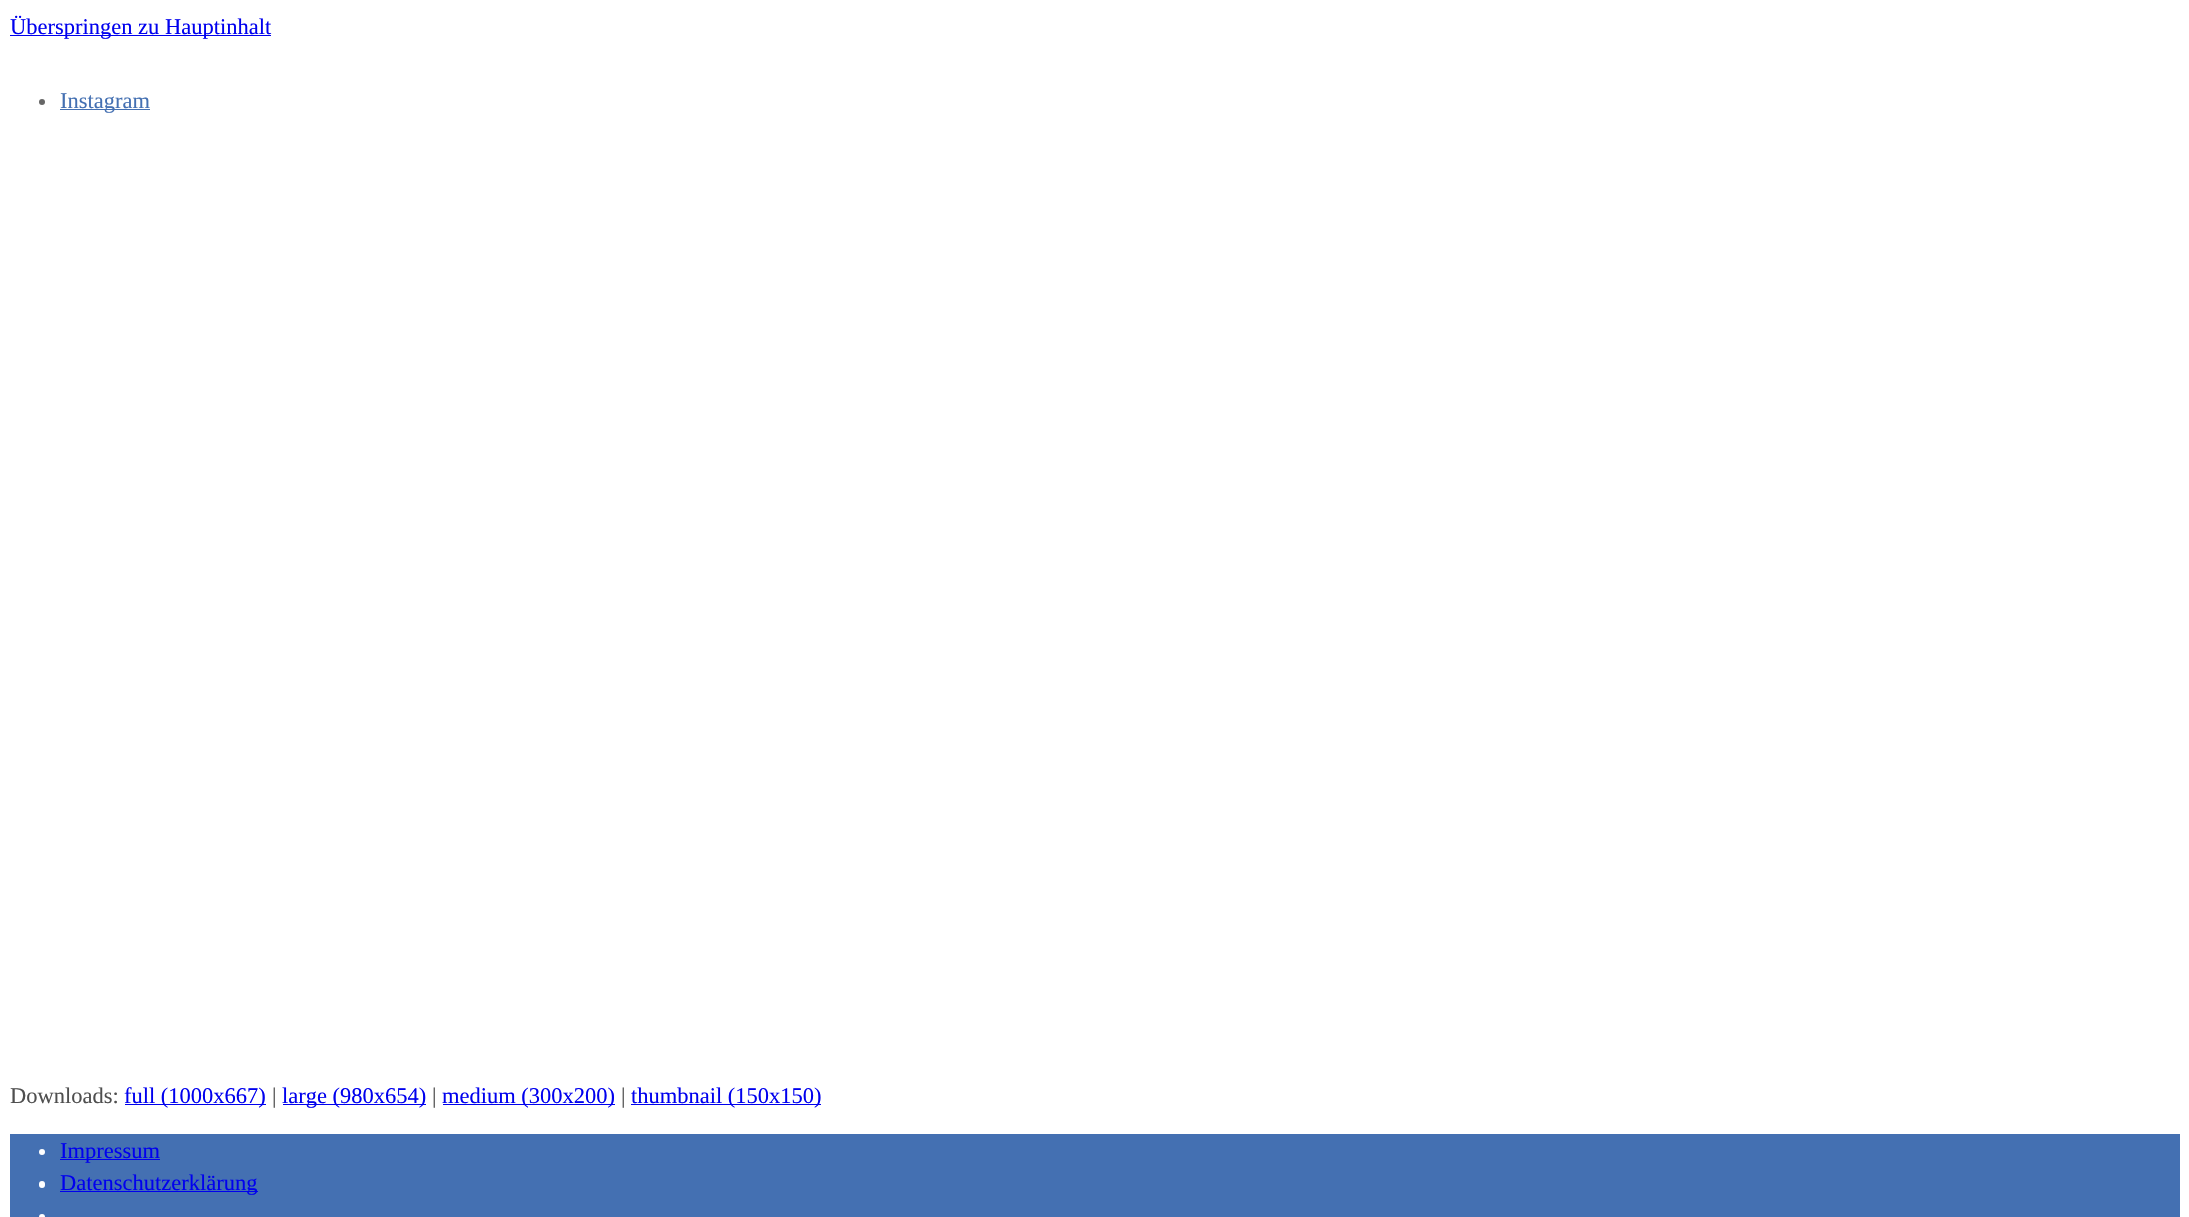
#include "include/core/SkBlurTypes.h"
#include "include/core/SkCanvas.h"
#include "include/core/SkData.h"
#include "include/core/SkFont.h"
#include "include/core/SkFontMgr.h"
#include "include/core/SkImage.h"
#include "include/core/SkMaskFilter.h"
#include "include/core/SkPaint.h"
#include "include/core/SkPathBuilder.h"
#include "include/core/SkTextBlob.h"
#include "include/effects/SkDashPathEffect.h"
#include "include/effects/SkGradientShader.h"
#include "include/utils/SkParsePath.h"

extern sk_sp<SkFontMgr> fontMgr;

void draw(SkCanvas* canvas) {
  SkPaint p;
  p.setAntiAlias(true);
  canvas->clear(SK_ColorWHITE);
  p.setColor(SkColorSetRGB(0, 0, 238));
  canvas->drawRect(SkRect::MakeLTRB(10, 35, 271, 36), p);
  p.setColor(SkColorSetRGB(102, 102, 102));
  canvas->drawCircle(42, 102, 3, p);
  p.setColor(SkColorSetRGB(68, 112, 178));
  canvas->drawRect(SkRect::MakeLTRB(60, 109, 150, 110), p);
  p.setColor(SkColorSetRGB(0, 0, 238));
  canvas->drawRect(SkRect::MakeLTRB(125, 1104, 266, 1105), p);
  canvas->drawRect(SkRect::MakeLTRB(283, 1104, 426, 1105), p);
  canvas->drawRect(SkRect::MakeLTRB(443, 1104, 615, 1105), p);
  canvas->drawRect(SkRect::MakeLTRB(631, 1104, 821, 1105), p);
  p.setColor(SkColorSetRGB(68, 112, 178));
  canvas->drawRect(SkRect::MakeLTRB(10, 1134, 2180, 1217), p);
  p.setColor(SK_ColorWHITE);
  canvas->drawCircle(42, 1152, 3, p);
  p.setColor(SkColorSetRGB(0, 0, 238));
  canvas->drawRect(SkRect::MakeLTRB(60, 1159, 160, 1160), p);
  p.setColor(SK_ColorWHITE);
  canvas->drawRoundRect(SkRect::MakeLTRB(39, 1181, 45, 1188), 3, 3, p);
  p.setColor(SkColorSetRGB(0, 0, 238));
  canvas->drawRect(SkRect::MakeLTRB(60, 1191, 258, 1192), p);
  p.setColor(SK_ColorWHITE);
  canvas->drawCircle(42, 1217, 3, p);
  SkFont font1(fontMgr->matchFamilyStyle("Liberation Serif", SkFontStyle::Normal()), 22.5f);
  font1.setSubpixel(true);
  p.setColor(SkColorSetRGB(0, 0, 238));
  canvas->drawString("Überspringen zu Hauptinhalt", 10, 34, font1, p);
  p.setColor(SkColorSetRGB(68, 112, 178));
  canvas->drawString("Instagram", 60, 108, font1, p);
  p.setColor(SkColorSetRGB(79, 79, 79));
  canvas->drawString("Downloads:", 10, 1103, font1, p);
  p.setColor(SkColorSetRGB(0, 0, 238));
  canvas->drawString("full (1000x667)", 124, 1103, font1, p);
  p.setColor(SkColorSetRGB(79, 79, 79));
  canvas->drawString("|", 272, 1103, font1, p);
  p.setColor(SkColorSetRGB(0, 0, 238));
  canvas->drawString("large (980x654)", 282, 1103, font1, p);
  p.setColor(SkColorSetRGB(79, 79, 79));
  canvas->drawString("|", 432, 1103, font1, p);
  p.setColor(SkColorSetRGB(0, 0, 238));
  canvas->drawString("medium (300x200)", 442, 1103, font1, p);
  p.setColor(SkColorSetRGB(79, 79, 79));
  canvas->drawString("|", 621, 1103, font1, p);
  p.setColor(SkColorSetRGB(0, 0, 238));
  canvas->drawString("thumbnail (150x150)", 631, 1103, font1, p);
  canvas->drawString("Impressum", 60, 1158, font1, p);
  canvas->drawString("Datenschutzerklärung", 60, 1190, font1, p);
}
